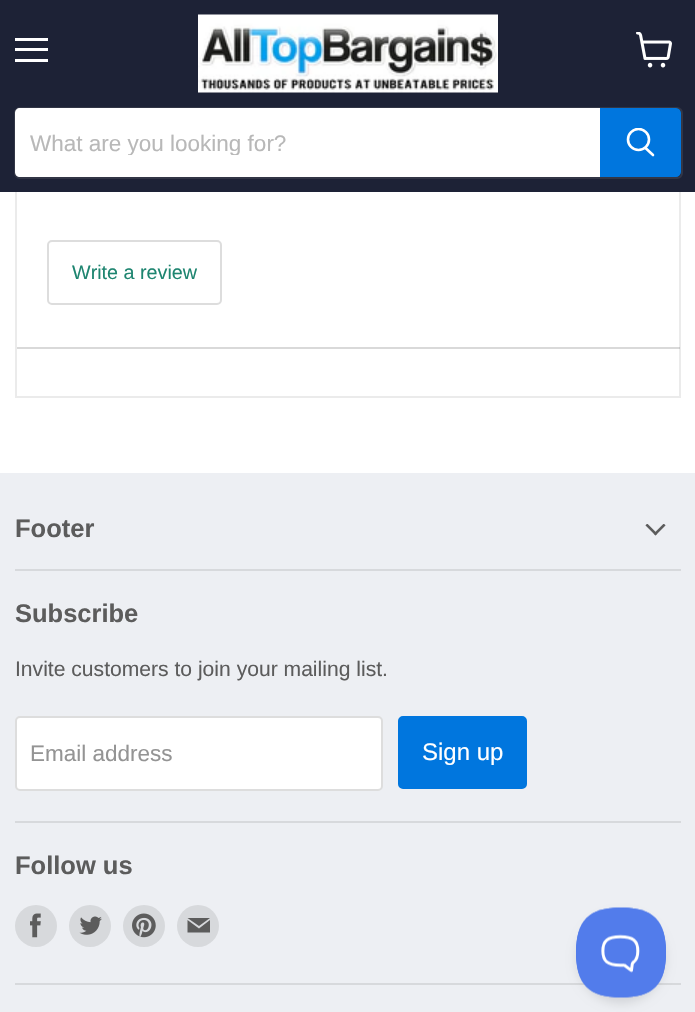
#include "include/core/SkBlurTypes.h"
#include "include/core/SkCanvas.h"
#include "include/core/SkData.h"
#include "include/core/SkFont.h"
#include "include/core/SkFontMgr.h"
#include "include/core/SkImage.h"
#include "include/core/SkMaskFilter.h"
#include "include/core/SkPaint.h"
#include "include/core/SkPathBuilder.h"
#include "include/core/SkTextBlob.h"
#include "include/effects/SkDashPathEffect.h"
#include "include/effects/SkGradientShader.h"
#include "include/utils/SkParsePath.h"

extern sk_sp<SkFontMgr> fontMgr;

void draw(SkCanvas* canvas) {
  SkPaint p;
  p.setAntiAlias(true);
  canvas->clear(SK_ColorWHITE);
  p.setStyle(SkPaint::kStroke_Style);
  p.setStrokeWidth(2);
  p.setColor(SkColorSetARGB(41, 128, 128, 128));
  canvas->drawRect(SkRect::MakeLTRB(16, 30, 680, 397), p);
  p.setStyle(SkPaint::kFill_Style);
  p.setColor(SkColorSetRGB(29, 34, 54));
  canvas->drawRect(SkRect::MakeLTRB(0, 0, 695, 192), p);
  p.setColor(SK_ColorWHITE);
  canvas->drawRect(SkRect::MakeLTRB(15, 38, 48, 41), p);
  canvas->drawRect(SkRect::MakeLTRB(15, 48, 48, 51), p);
  canvas->drawRect(SkRect::MakeLTRB(15, 59, 48, 62), p);
  canvas->drawImageRect(SkImages::DeferredFromEncodedData(SkData::MakeFromFileName("images/1.png")), SkRect::MakeLTRB(636, 32, 672, 68), SkSamplingOptions());
  canvas->drawImageRect(SkImages::DeferredFromEncodedData(SkData::MakeFromFileName("images/2.png")), SkRect::MakeLTRB(198, 14, 498, 93), SkSamplingOptions());
  p.setStyle(SkPaint::kStroke_Style);
  p.setColor(SkColorSetARGB(51, 128, 128, 128));
  canvas->drawRoundRect(SkRect::MakeLTRB(15, 108, 682, 178), 5, 5, p);
  p.setStyle(SkPaint::kFill_Style);
  p.setColor(SK_ColorWHITE);
  canvas->drawPath(SkPathBuilder().moveTo(20, 108).lineTo(600, 108).lineTo(600, 177).lineTo(20, 177).cubicTo(17, 177, 15, 175, 15, 172).lineTo(15, 113).cubicTo(15, 110, 17, 108, 20, 108).close().detach(), p);
  p.setColor(SkColorSetRGB(0, 118, 222));
  canvas->drawPath(SkPathBuilder().moveTo(601, 109).lineTo(676, 109).cubicTo(678, 109, 680, 111, 680, 113).lineTo(680, 172).cubicTo(680, 174, 678, 176, 676, 176).lineTo(601, 176).close().detach(), p);
  p.setStyle(SkPaint::kStroke_Style);
  canvas->drawPath(SkPathBuilder().moveTo(601, 109).lineTo(676, 109).cubicTo(678, 109, 680, 111, 680, 113).lineTo(680, 172).cubicTo(680, 174, 678, 176, 676, 176).lineTo(601, 176).close().detach(), p);
  p.setStrokeWidth(2.6f);
  p.setStrokeCap(SkPaint::kRound_Cap);
  p.setColor(SK_ColorWHITE);
  canvas->drawPath(SkPathBuilder().moveTo(653, 155).lineTo(645.5f, 148).detach(), p);
  canvas->save();
  canvas->clipRect(SkRect::MakeLTRB(626, 128, 656, 159));
  p.setStrokeCap(SkPaint::kButt_Cap);
  canvas->drawCircle(638.5f, 139.5f, 10.5f, p);
  canvas->restore();
  p.setStrokeWidth(2);
  p.setColor(SkColorSetRGB(221, 221, 221));
  canvas->drawRoundRect(SkRect::MakeLTRB(48, 241, 221, 304), 4, 4, p);
  p.setStyle(SkPaint::kFill_Style);
  p.setColor(SkColorSetARGB(38, 0, 0, 0));
  canvas->drawRect(SkRect::MakeLTRB(17, 347, 680, 349), p);
  p.setColor(SkColorSetRGB(237, 239, 243));
  canvas->drawRect(SkRect::MakeLTRB(0, 473, 695, 1012), p);
  p.setColor(SkColorSetRGB(215, 217, 220));
  canvas->drawRect(SkRect::MakeLTRB(15, 569, 681, 571), p);
  canvas->drawImageRect(SkImages::DeferredFromEncodedData(SkData::MakeFromFileName("images/3.png")), SkRect::MakeLTRB(645, 524, 666, 536), SkSamplingOptions());
  canvas->drawRect(SkRect::MakeLTRB(15, 821, 681, 823), p);
  p.setColor(SK_ColorWHITE);
  canvas->drawRoundRect(SkRect::MakeLTRB(16, 717, 382, 790), 4, 4, p);
  p.setStyle(SkPaint::kStroke_Style);
  p.setColor(SkColorSetRGB(221, 221, 221));
  canvas->drawRoundRect(SkRect::MakeLTRB(16, 717, 382, 790), 4, 4, p);
  p.setStyle(SkPaint::kFill_Style);
  p.setColor(SkColorSetRGB(0, 118, 222));
  canvas->drawRoundRect(SkRect::MakeLTRB(399, 717, 526, 788), 4, 4, p);
  p.setStyle(SkPaint::kStroke_Style);
  canvas->drawRoundRect(SkRect::MakeLTRB(399, 717, 526, 788), 4, 4, p);
  p.setStyle(SkPaint::kFill_Style);
  p.setColor(SkColorSetRGB(215, 217, 220));
  canvas->drawRect(SkRect::MakeLTRB(15, 983, 681, 985), p);
  canvas->drawCircle(36, 926, 21, p);
  canvas->drawImageRect(SkImages::DeferredFromEncodedData(SkData::MakeFromFileName("images/4.png")), SkRect::MakeLTRB(30, 913, 41, 938), SkSamplingOptions());
  canvas->drawCircle(90, 926, 21, p);
  canvas->drawImageRect(SkImages::DeferredFromEncodedData(SkData::MakeFromFileName("images/5.png")), SkRect::MakeLTRB(79, 916, 102, 935), SkSamplingOptions());
  canvas->drawCircle(144, 926, 21, p);
  canvas->drawImageRect(SkImages::DeferredFromEncodedData(SkData::MakeFromFileName("images/6.png")), SkRect::MakeLTRB(132, 913, 156, 938), SkSamplingOptions());
  canvas->drawCircle(198, 926, 21, p);
  p.setColor(SkColorSetRGB(92, 92, 92));
  canvas->drawPath(SkPathBuilder(SkPathFillType::kEvenOdd).moveTo(210, 918).lineTo(187.5f, 918).lineTo(199, 926).close().moveTo(199, 928.5f).lineTo(187.5f, 920).lineTo(187.5f, 932.5f).lineTo(210, 932.5f).lineTo(210, 920).close().detach(), p);
  p.setColor(SkColorSetARGB(26, 0, 0, 0));
  p.setMaskFilter(SkMaskFilter::MakeBlur(kNormal_SkBlurStyle, 5));
  canvas->drawRoundRect(SkRect::MakeLTRB(576, 914, 666, 1004), 45, 45, p);
  p.setMaskFilter(nullptr);
  canvas->drawImageRect(SkImages::DeferredFromEncodedData(SkData::MakeFromFileName("images/7.png")), SkRect::MakeLTRB(576, 907, 666, 998), SkSamplingOptions());
  canvas->save();
  canvas->clipRect(SkRect::MakeLTRB(30, 129, 585, 155));
  SkFont font1(fontMgr->matchFamilyStyle("Liberation Sans", SkFontStyle::Normal()), 22.5f);
  font1.setSubpixel(true);
  p.setColor(SkColorSetRGB(184, 184, 184));
  canvas->drawString("What are you looking for?", 30, 151, font1, p);
  canvas->restore();
  SkFont font2(fontMgr->matchFamilyStyle("Liberation Sans", SkFontStyle::Normal()), 19.75f);
  font2.setSubpixel(true);
  p.setColor(SkColorSetRGB(30, 133, 112));
  canvas->drawString("Write a review", 72, 279, font2, p);
  SkFont font3(fontMgr->matchFamilyStyle("Liberation Sans", SkFontStyle::Bold()), 25.5f);
  font3.setSubpixel(true);
  p.setColor(SkColorSetRGB(92, 92, 92));
  canvas->drawString("Footer", 15, 537, font3, p);
  canvas->drawString("Subscribe", 15, 622, font3, p);
  SkFont font4(fontMgr->matchFamilyStyle("Liberation Sans", SkFontStyle::Normal()), 21.1f);
  font4.setSubpixel(true);
  canvas->drawString("Invite customers to join your mailing list.", 15, 676, font4, p);
  p.setColor(SkColorSetRGB(148, 148, 148));
  canvas->drawString("Email address", 30, 761, font1, p);
  SkFont font5(fontMgr->matchFamilyStyle("Liberation Sans", SkFontStyle::Normal()), 24);
  font5.setSubpixel(true);
  p.setColor(SK_ColorWHITE);
  canvas->drawString("Sign up", 422, 760, font5, p);
  p.setColor(SkColorSetRGB(92, 92, 92));
  canvas->drawString("Follow us", 15, 874, font3, p);
}
